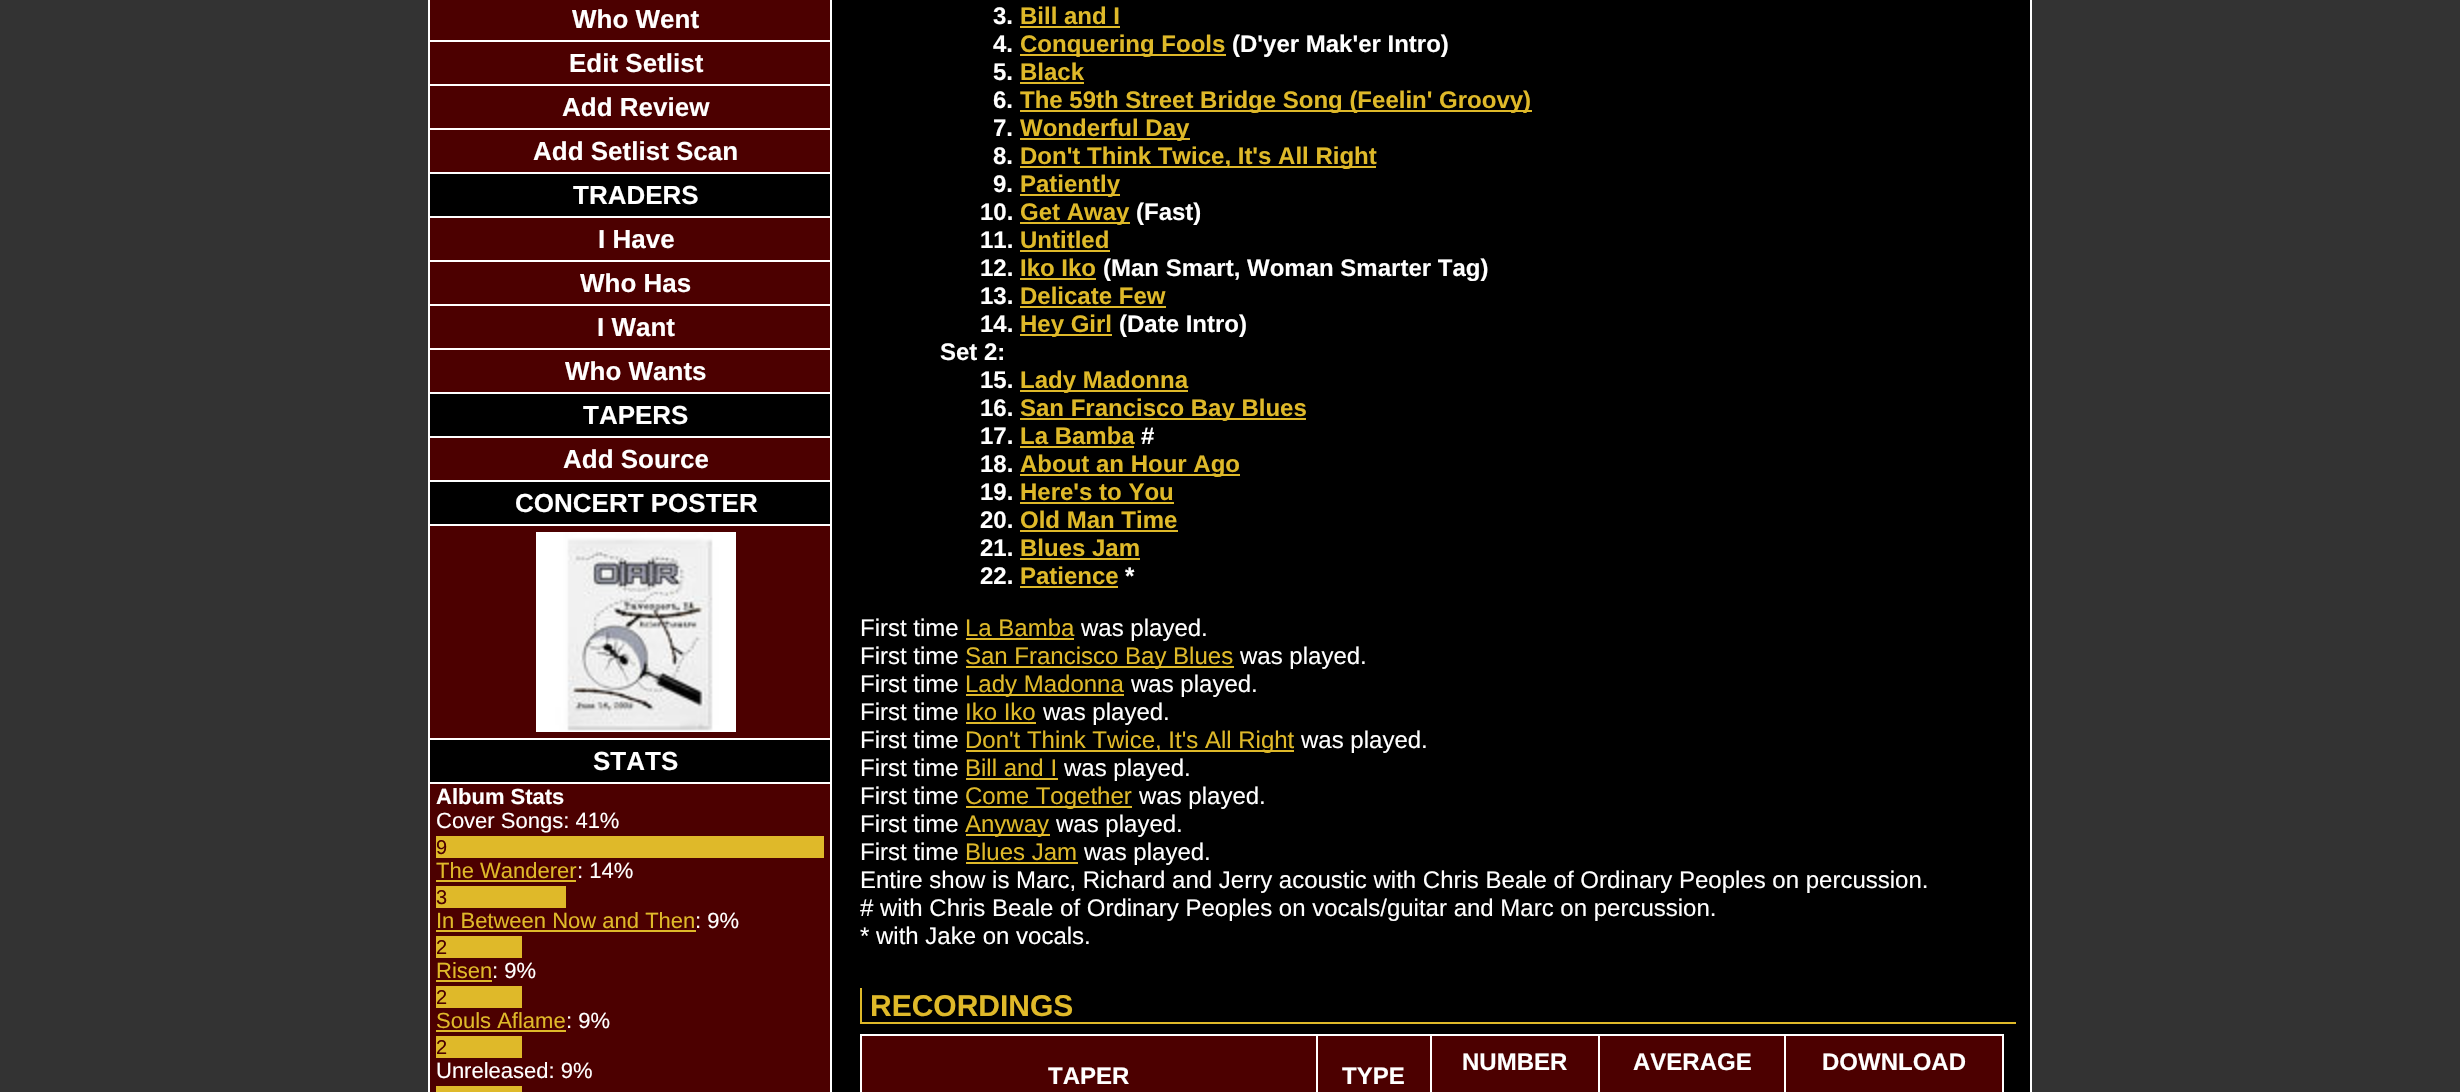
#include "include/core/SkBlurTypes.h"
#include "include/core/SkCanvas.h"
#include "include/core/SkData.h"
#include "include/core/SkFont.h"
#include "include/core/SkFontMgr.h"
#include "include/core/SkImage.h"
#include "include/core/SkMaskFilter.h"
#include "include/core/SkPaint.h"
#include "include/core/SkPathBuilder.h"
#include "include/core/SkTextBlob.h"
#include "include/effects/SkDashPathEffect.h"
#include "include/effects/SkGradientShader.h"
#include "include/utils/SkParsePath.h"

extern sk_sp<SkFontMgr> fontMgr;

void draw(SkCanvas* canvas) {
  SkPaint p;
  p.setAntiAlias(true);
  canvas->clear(SkColorSetRGB(51, 51, 51));
  p.setColor(SK_ColorBLACK);
  canvas->drawRect(SkRect::MakeLTRB(832, 0, 2030, 1092), p);
  p.setColor(SK_ColorWHITE);
  canvas->drawRect(SkRect::MakeLTRB(2030, 0, 2032, 1092), p);
  canvas->drawRect(SkRect::MakeLTRB(428, 0, 430, 1092), p);
  p.setColor(SkColorSetRGB(76, 0, 0));
  canvas->drawRect(SkRect::MakeLTRB(430, 0, 830, 1092), p);
  p.setColor(SK_ColorWHITE);
  canvas->drawRect(SkRect::MakeLTRB(830, 0, 832, 1092), p);
  canvas->drawRect(SkRect::MakeLTRB(430, 40, 830, 42), p);
  canvas->drawRect(SkRect::MakeLTRB(430, 84, 830, 86), p);
  canvas->drawRect(SkRect::MakeLTRB(430, 128, 830, 130), p);
  canvas->drawRect(SkRect::MakeLTRB(430, 172, 830, 174), p);
  p.setColor(SK_ColorBLACK);
  canvas->drawRect(SkRect::MakeLTRB(430, 174, 830, 216), p);
  p.setColor(SK_ColorWHITE);
  canvas->drawRect(SkRect::MakeLTRB(430, 216, 830, 218), p);
  canvas->drawRect(SkRect::MakeLTRB(430, 260, 830, 262), p);
  canvas->drawRect(SkRect::MakeLTRB(430, 304, 830, 306), p);
  canvas->drawRect(SkRect::MakeLTRB(430, 348, 830, 350), p);
  canvas->drawRect(SkRect::MakeLTRB(430, 392, 830, 394), p);
  p.setColor(SK_ColorBLACK);
  canvas->drawRect(SkRect::MakeLTRB(430, 394, 830, 436), p);
  p.setColor(SK_ColorWHITE);
  canvas->drawRect(SkRect::MakeLTRB(430, 436, 830, 438), p);
  canvas->drawRect(SkRect::MakeLTRB(430, 480, 830, 482), p);
  p.setColor(SK_ColorBLACK);
  canvas->drawRect(SkRect::MakeLTRB(430, 482, 830, 524), p);
  p.setColor(SK_ColorWHITE);
  canvas->drawRect(SkRect::MakeLTRB(430, 524, 830, 526), p);
  canvas->drawRect(SkRect::MakeLTRB(430, 738, 830, 740), p);
  canvas->drawImageRect(SkImages::DeferredFromEncodedData(SkData::MakeFromFileName("images/1.png")), SkRect::MakeLTRB(536, 532, 736, 732), SkSamplingOptions());
  p.setColor(SK_ColorBLACK);
  canvas->drawRect(SkRect::MakeLTRB(430, 740, 830, 782), p);
  p.setColor(SK_ColorWHITE);
  canvas->drawRect(SkRect::MakeLTRB(430, 782, 830, 784), p);
  p.setColor(SkColorSetRGB(223, 185, 41));
  canvas->drawRect(SkRect::MakeLTRB(436, 836, 824, 858), p);
  canvas->drawRect(SkRect::MakeLTRB(436, 880, 576, 882), p);
  canvas->drawRect(SkRect::MakeLTRB(436, 886, 566, 908), p);
  canvas->drawRect(SkRect::MakeLTRB(436, 930, 696, 932), p);
  canvas->drawRect(SkRect::MakeLTRB(436, 936, 522, 958), p);
  canvas->drawRect(SkRect::MakeLTRB(436, 980, 492, 982), p);
  canvas->drawRect(SkRect::MakeLTRB(436, 986, 522, 1008), p);
  canvas->drawRect(SkRect::MakeLTRB(436, 1030, 566, 1032), p);
  canvas->drawRect(SkRect::MakeLTRB(436, 1036, 522, 1058), p);
  canvas->drawRect(SkRect::MakeLTRB(436, 1086, 522, 1092), p);
  canvas->drawRect(SkRect::MakeLTRB(1020, 26, 1120, 28), p);
  canvas->drawRect(SkRect::MakeLTRB(1020, 54, 1226, 56), p);
  canvas->drawRect(SkRect::MakeLTRB(1020, 82, 1084, 84), p);
  canvas->drawRect(SkRect::MakeLTRB(1020, 110, 1532, 112), p);
  canvas->drawRect(SkRect::MakeLTRB(1020, 138, 1190, 140), p);
  canvas->drawRect(SkRect::MakeLTRB(1020, 166, 1376, 168), p);
  canvas->drawRect(SkRect::MakeLTRB(1020, 194, 1120, 196), p);
  canvas->drawRect(SkRect::MakeLTRB(1020, 222, 1130, 224), p);
  canvas->drawRect(SkRect::MakeLTRB(1020, 250, 1110, 252), p);
  canvas->drawRect(SkRect::MakeLTRB(1020, 278, 1096, 280), p);
  canvas->drawRect(SkRect::MakeLTRB(1020, 306, 1166, 308), p);
  canvas->drawRect(SkRect::MakeLTRB(1020, 334, 1112, 336), p);
  canvas->drawRect(SkRect::MakeLTRB(1020, 390, 1188, 392), p);
  canvas->drawRect(SkRect::MakeLTRB(1020, 418, 1306, 420), p);
  canvas->drawRect(SkRect::MakeLTRB(1020, 446, 1134, 448), p);
  canvas->drawRect(SkRect::MakeLTRB(1020, 474, 1240, 476), p);
  canvas->drawRect(SkRect::MakeLTRB(1020, 502, 1174, 504), p);
  canvas->drawRect(SkRect::MakeLTRB(1020, 530, 1178, 532), p);
  canvas->drawRect(SkRect::MakeLTRB(1020, 558, 1140, 560), p);
  canvas->drawRect(SkRect::MakeLTRB(1020, 586, 1118, 588), p);
  canvas->drawRect(SkRect::MakeLTRB(966, 638, 1074, 640), p);
  canvas->drawRect(SkRect::MakeLTRB(966, 666, 1234, 668), p);
  canvas->drawRect(SkRect::MakeLTRB(966, 694, 1124, 696), p);
  canvas->drawRect(SkRect::MakeLTRB(966, 722, 1036, 724), p);
  canvas->drawRect(SkRect::MakeLTRB(966, 750, 1294, 752), p);
  canvas->drawRect(SkRect::MakeLTRB(966, 778, 1058, 780), p);
  canvas->drawRect(SkRect::MakeLTRB(966, 806, 1132, 808), p);
  canvas->drawRect(SkRect::MakeLTRB(966, 834, 1050, 836), p);
  canvas->drawRect(SkRect::MakeLTRB(966, 862, 1078, 864), p);
  canvas->drawRect(SkRect::MakeLTRB(860, 1022, 2016, 1024), p);
  canvas->drawRect(SkRect::MakeLTRB(860, 988, 862, 1024), p);
  p.setColor(SkColorSetRGB(76, 0, 0));
  canvas->drawRect(SkRect::MakeLTRB(1432, 1036, 1598, 1092), p);
  p.setColor(SK_ColorWHITE);
  canvas->drawRect(SkRect::MakeLTRB(1784, 1034, 2004, 1036), p);
  canvas->drawRect(SkRect::MakeLTRB(1784, 1034, 1786, 1092), p);
  canvas->drawRect(SkRect::MakeLTRB(1598, 1034, 1786, 1036), p);
  canvas->drawRect(SkRect::MakeLTRB(1598, 1034, 1600, 1092), p);
  canvas->drawRect(SkRect::MakeLTRB(1430, 1034, 1600, 1036), p);
  canvas->drawRect(SkRect::MakeLTRB(1430, 1034, 1432, 1092), p);
  p.setColor(SkColorSetRGB(76, 0, 0));
  canvas->drawRect(SkRect::MakeLTRB(1600, 1036, 1784, 1092), p);
  canvas->drawRect(SkRect::MakeLTRB(1786, 1036, 2002, 1092), p);
  p.setColor(SK_ColorWHITE);
  canvas->drawRect(SkRect::MakeLTRB(2002, 1034, 2004, 1092), p);
  p.setColor(SkColorSetRGB(76, 0, 0));
  canvas->drawRect(SkRect::MakeLTRB(862, 1036, 1316, 1092), p);
  p.setColor(SK_ColorWHITE);
  canvas->drawRect(SkRect::MakeLTRB(1316, 1034, 1432, 1036), p);
  canvas->drawRect(SkRect::MakeLTRB(1316, 1034, 1318, 1092), p);
  canvas->drawRect(SkRect::MakeLTRB(860, 1034, 1318, 1036), p);
  canvas->drawRect(SkRect::MakeLTRB(860, 1034, 862, 1092), p);
  p.setColor(SkColorSetRGB(76, 0, 0));
  canvas->drawRect(SkRect::MakeLTRB(1318, 1036, 1430, 1092), p);
  SkFont font1(fontMgr->matchFamilyStyle("Liberation Sans", SkFontStyle::Bold()), 26);
  font1.setSubpixel(true);
  p.setColor(SK_ColorWHITE);
  canvas->drawString("Who Went", 572, 28, font1, p);
  canvas->drawString("Edit Setlist", 569, 72, font1, p);
  canvas->drawString("Add Review", 562, 116, font1, p);
  canvas->drawString("Add Setlist Scan", 533, 160, font1, p);
  canvas->drawString("TRADERS", 573, 204, font1, p);
  canvas->drawString("I Have", 598, 248, font1, p);
  canvas->drawString("Who Has", 580, 292, font1, p);
  canvas->drawString("I Want", 597, 336, font1, p);
  canvas->drawString("Who Wants", 565, 380, font1, p);
  canvas->drawString("TAPERS", 583, 424, font1, p);
  canvas->drawString("Add Source", 563, 468, font1, p);
  canvas->drawString("CONCERT POSTER", 515, 512, font1, p);
  canvas->drawString("STATS", 593, 770, font1, p);
  SkFont font2(fontMgr->matchFamilyStyle("Liberation Sans", SkFontStyle::Bold()), 22);
  font2.setSubpixel(true);
  canvas->drawString("Album Stats", 436, 804, font2, p);
  SkFont font3(fontMgr->matchFamilyStyle("Liberation Sans", SkFontStyle::Normal()), 22);
  font3.setSubpixel(true);
  canvas->drawString("Cover Songs: 41%", 436, 828, font3, p);
  SkFont font4(fontMgr->matchFamilyStyle("Liberation Sans", SkFontStyle::Normal()), 20);
  font4.setSubpixel(true);
  p.setColor(SkColorSetRGB(76, 0, 0));
  canvas->drawString("9", 436, 854, font4, p);
  p.setColor(SkColorSetRGB(223, 185, 41));
  canvas->drawString("The Wanderer", 436, 878, font3, p);
  p.setColor(SK_ColorWHITE);
  canvas->drawString(": 14%", 577, 878, font3, p);
  p.setColor(SkColorSetRGB(76, 0, 0));
  canvas->drawString("3", 436, 904, font4, p);
  p.setColor(SkColorSetRGB(223, 185, 41));
  canvas->drawString("In Between Now and Then", 436, 928, font3, p);
  p.setColor(SK_ColorWHITE);
  canvas->drawString(": 9%", 695, 928, font3, p);
  p.setColor(SkColorSetRGB(76, 0, 0));
  canvas->drawString("2", 436, 954, font4, p);
  p.setColor(SkColorSetRGB(223, 185, 41));
  canvas->drawString("Risen", 436, 978, font3, p);
  p.setColor(SK_ColorWHITE);
  canvas->drawString(": 9%", 492, 978, font3, p);
  p.setColor(SkColorSetRGB(76, 0, 0));
  canvas->drawString("2", 436, 1004, font4, p);
  p.setColor(SkColorSetRGB(223, 185, 41));
  canvas->drawString("Souls Aflame", 436, 1028, font3, p);
  p.setColor(SK_ColorWHITE);
  canvas->drawString(": 9%", 566, 1028, font3, p);
  p.setColor(SkColorSetRGB(76, 0, 0));
  canvas->drawString("2", 436, 1054, font4, p);
  p.setColor(SK_ColorWHITE);
  canvas->drawString("Unreleased: 9%", 436, 1078, font3, p);
  SkFont font5(fontMgr->matchFamilyStyle("Liberation Sans", SkFontStyle::Bold()), 24);
  font5.setSubpixel(true);
  canvas->drawString("3.", 993, 24, font5, p);
  p.setColor(SkColorSetRGB(223, 185, 41));
  canvas->drawString("Bill and I", 1020, 24, font5, p);
  p.setColor(SK_ColorWHITE);
  canvas->drawString("4.", 993, 52, font5, p);
  p.setColor(SkColorSetRGB(223, 185, 41));
  canvas->drawString("Conquering Fools", 1020, 52, font5, p);
  p.setColor(SK_ColorWHITE);
  canvas->drawString("(D'yer Mak'er Intro)", 1232, 52, font5, p);
  canvas->drawString("5.", 993, 80, font5, p);
  p.setColor(SkColorSetRGB(223, 185, 41));
  canvas->drawString("Black", 1020, 80, font5, p);
  p.setColor(SK_ColorWHITE);
  canvas->drawString("6.", 993, 108, font5, p);
  p.setColor(SkColorSetRGB(223, 185, 41));
  canvas->drawString("The 59th Street Bridge Song (Feelin' Groovy)", 1020, 108, font5, p);
  p.setColor(SK_ColorWHITE);
  canvas->drawString("7.", 993, 136, font5, p);
  p.setColor(SkColorSetRGB(223, 185, 41));
  canvas->drawString("Wonderful Day", 1020, 136, font5, p);
  p.setColor(SK_ColorWHITE);
  canvas->drawString("8.", 993, 164, font5, p);
  p.setColor(SkColorSetRGB(223, 185, 41));
  canvas->drawString("Don't Think Twice, It's All Right", 1020, 164, font5, p);
  p.setColor(SK_ColorWHITE);
  canvas->drawString("9.", 993, 192, font5, p);
  p.setColor(SkColorSetRGB(223, 185, 41));
  canvas->drawString("Patiently", 1020, 192, font5, p);
  p.setColor(SK_ColorWHITE);
  canvas->drawString("10.", 980, 220, font5, p);
  p.setColor(SkColorSetRGB(223, 185, 41));
  canvas->drawString("Get Away", 1020, 220, font5, p);
  p.setColor(SK_ColorWHITE);
  canvas->drawString("(Fast)", 1136, 220, font5, p);
  canvas->drawString("11.", 980, 248, font5, p);
  p.setColor(SkColorSetRGB(223, 185, 41));
  canvas->drawString("Untitled", 1020, 248, font5, p);
  p.setColor(SK_ColorWHITE);
  canvas->drawString("12.", 980, 276, font5, p);
  p.setColor(SkColorSetRGB(223, 185, 41));
  canvas->drawString("Iko Iko", 1020, 276, font5, p);
  p.setColor(SK_ColorWHITE);
  canvas->drawString("(Man Smart, Woman Smarter Tag)", 1103, 276, font5, p);
  canvas->drawString("13.", 980, 304, font5, p);
  p.setColor(SkColorSetRGB(223, 185, 41));
  canvas->drawString("Delicate Few", 1020, 304, font5, p);
  p.setColor(SK_ColorWHITE);
  canvas->drawString("14.", 980, 332, font5, p);
  p.setColor(SkColorSetRGB(223, 185, 41));
  canvas->drawString("Hey Girl", 1020, 332, font5, p);
  p.setColor(SK_ColorWHITE);
  canvas->drawString("(Date Intro)", 1119, 332, font5, p);
  canvas->drawString("Set 2:", 940, 360, font5, p);
  canvas->drawString("15.", 980, 388, font5, p);
  p.setColor(SkColorSetRGB(223, 185, 41));
  canvas->drawString("Lady Madonna", 1020, 388, font5, p);
  p.setColor(SK_ColorWHITE);
  canvas->drawString("16.", 980, 416, font5, p);
  p.setColor(SkColorSetRGB(223, 185, 41));
  canvas->drawString("San Francisco Bay Blues", 1020, 416, font5, p);
  p.setColor(SK_ColorWHITE);
  canvas->drawString("17.", 980, 444, font5, p);
  p.setColor(SkColorSetRGB(223, 185, 41));
  canvas->drawString("La Bamba", 1020, 444, font5, p);
  p.setColor(SK_ColorWHITE);
  canvas->drawString("#", 1141, 444, font5, p);
  canvas->drawString("18.", 980, 472, font5, p);
  p.setColor(SkColorSetRGB(223, 185, 41));
  canvas->drawString("About an Hour Ago", 1020, 472, font5, p);
  p.setColor(SK_ColorWHITE);
  canvas->drawString("19.", 980, 500, font5, p);
  p.setColor(SkColorSetRGB(223, 185, 41));
  canvas->drawString("Here's to You", 1020, 500, font5, p);
  p.setColor(SK_ColorWHITE);
  canvas->drawString("20.", 980, 528, font5, p);
  p.setColor(SkColorSetRGB(223, 185, 41));
  canvas->drawString("Old Man Time", 1020, 528, font5, p);
  p.setColor(SK_ColorWHITE);
  canvas->drawString("21.", 980, 556, font5, p);
  p.setColor(SkColorSetRGB(223, 185, 41));
  canvas->drawString("Blues Jam", 1020, 556, font5, p);
  p.setColor(SK_ColorWHITE);
  canvas->drawString("22.", 980, 584, font5, p);
  p.setColor(SkColorSetRGB(223, 185, 41));
  canvas->drawString("Patience", 1020, 584, font5, p);
  p.setColor(SK_ColorWHITE);
  canvas->drawString("*", 1125, 584, font5, p);
  SkFont font6(fontMgr->matchFamilyStyle("Liberation Sans", SkFontStyle::Normal()), 24);
  font6.setSubpixel(true);
  canvas->drawString("First time", 860, 636, font6, p);
  p.setColor(SkColorSetRGB(223, 185, 41));
  canvas->drawString("La Bamba", 965, 636, font6, p);
  p.setColor(SK_ColorWHITE);
  canvas->drawString("was played.", 1081, 636, font6, p);
  canvas->drawString("First time", 860, 664, font6, p);
  p.setColor(SkColorSetRGB(223, 185, 41));
  canvas->drawString("San Francisco Bay Blues", 965, 664, font6, p);
  p.setColor(SK_ColorWHITE);
  canvas->drawString("was played.", 1240, 664, font6, p);
  canvas->drawString("First time", 860, 692, font6, p);
  p.setColor(SkColorSetRGB(223, 185, 41));
  canvas->drawString("Lady Madonna", 965, 692, font6, p);
  p.setColor(SK_ColorWHITE);
  canvas->drawString("was played.", 1131, 692, font6, p);
  canvas->drawString("First time", 860, 720, font6, p);
  p.setColor(SkColorSetRGB(223, 185, 41));
  canvas->drawString("Iko Iko", 965, 720, font6, p);
  p.setColor(SK_ColorWHITE);
  canvas->drawString("was played.", 1043, 720, font6, p);
  canvas->drawString("First time", 860, 748, font6, p);
  p.setColor(SkColorSetRGB(223, 185, 41));
  canvas->drawString("Don't Think Twice, It's All Right", 965, 748, font6, p);
  p.setColor(SK_ColorWHITE);
  canvas->drawString("was played.", 1301, 748, font6, p);
  canvas->drawString("First time", 860, 776, font6, p);
  p.setColor(SkColorSetRGB(223, 185, 41));
  canvas->drawString("Bill and I", 965, 776, font6, p);
  p.setColor(SK_ColorWHITE);
  canvas->drawString("was played.", 1064, 776, font6, p);
  canvas->drawString("First time", 860, 804, font6, p);
  p.setColor(SkColorSetRGB(223, 185, 41));
  canvas->drawString("Come Together", 965, 804, font6, p);
  p.setColor(SK_ColorWHITE);
  canvas->drawString("was played.", 1139, 804, font6, p);
  canvas->drawString("First time", 860, 832, font6, p);
  p.setColor(SkColorSetRGB(223, 185, 41));
  canvas->drawString("Anyway", 965, 832, font6, p);
  p.setColor(SK_ColorWHITE);
  canvas->drawString("was played.", 1056, 832, font6, p);
  canvas->drawString("First time", 860, 860, font6, p);
  p.setColor(SkColorSetRGB(223, 185, 41));
  canvas->drawString("Blues Jam", 965, 860, font6, p);
  p.setColor(SK_ColorWHITE);
  canvas->drawString("was played.", 1084, 860, font6, p);
  canvas->drawString("Entire show is Marc, Richard and Jerry acoustic with Chris Beale of Ordinary Peoples on percussion.", 860, 888, font6, p);
  canvas->drawString("# with Chris Beale of Ordinary Peoples on vocals/guitar and Marc on percussion.", 860, 916, font6, p);
  canvas->drawString("* with Jake on vocals.", 860, 944, font6, p);
  SkFont font7(fontMgr->matchFamilyStyle("Liberation Sans", SkFontStyle::Bold()), 30);
  font7.setSubpixel(true);
  p.setColor(SkColorSetRGB(223, 185, 41));
  canvas->drawString("RECORDINGS", 870, 1016, font7, p);
  p.setColor(SK_ColorWHITE);
  canvas->drawString("NUMBER", 1462, 1070, font5, p);
  canvas->drawString("AVERAGE", 1633, 1070, font5, p);
  canvas->drawString("DOWNLOAD", 1822, 1070, font5, p);
  canvas->drawString("TAPER", 1048, 1084, font5, p);
  canvas->drawString("TYPE", 1342, 1084, font5, p);
}
